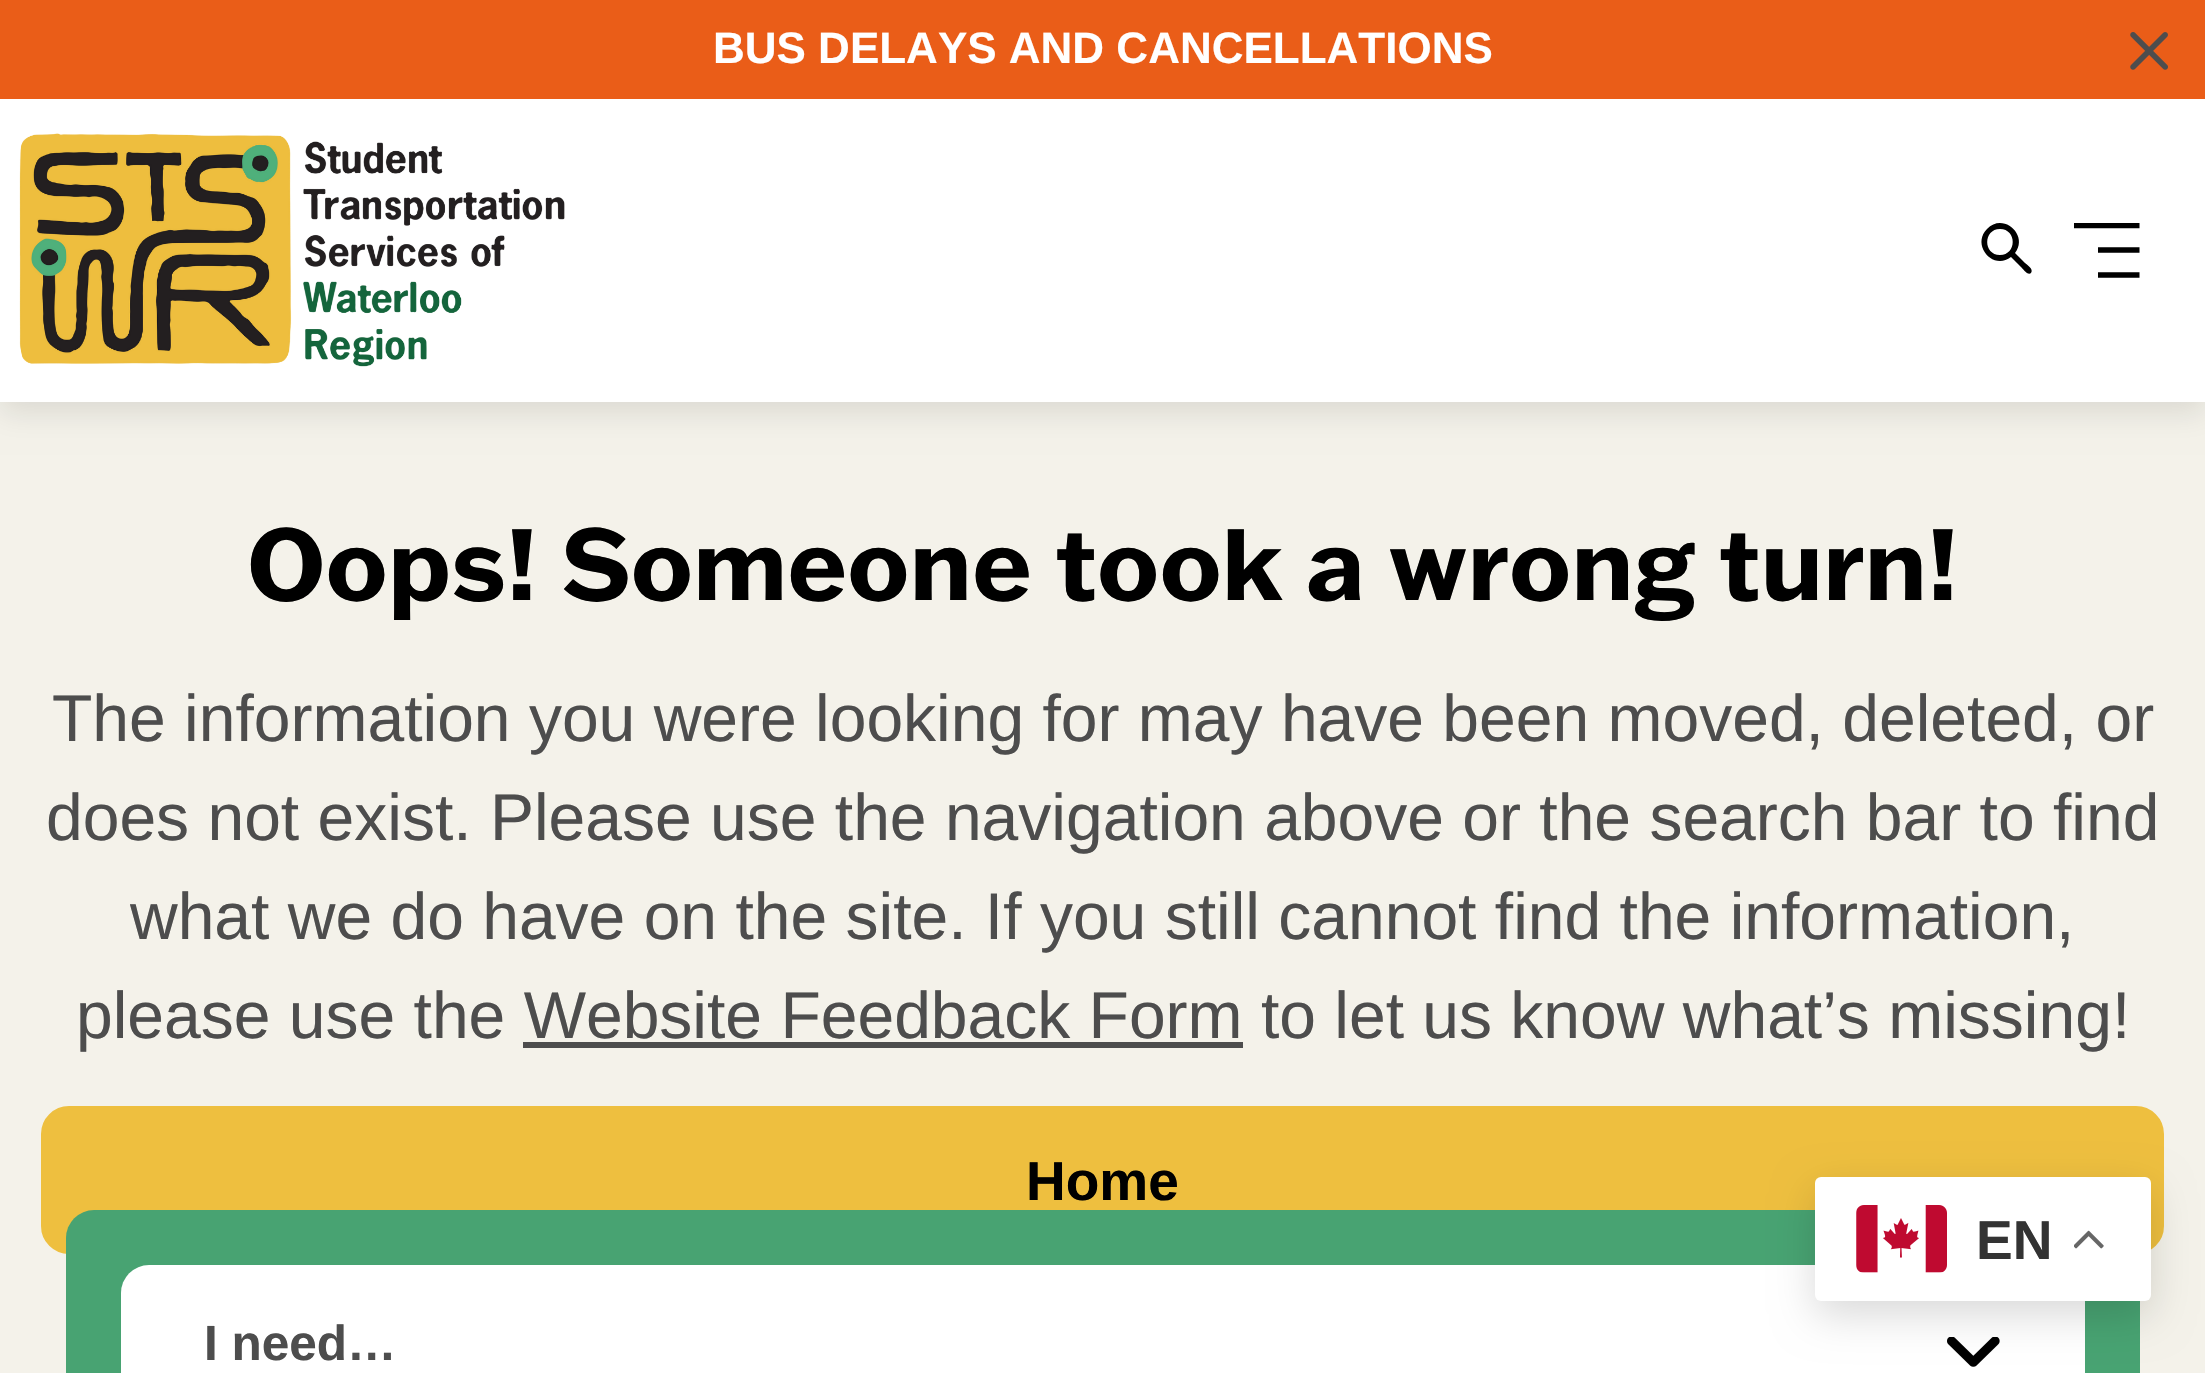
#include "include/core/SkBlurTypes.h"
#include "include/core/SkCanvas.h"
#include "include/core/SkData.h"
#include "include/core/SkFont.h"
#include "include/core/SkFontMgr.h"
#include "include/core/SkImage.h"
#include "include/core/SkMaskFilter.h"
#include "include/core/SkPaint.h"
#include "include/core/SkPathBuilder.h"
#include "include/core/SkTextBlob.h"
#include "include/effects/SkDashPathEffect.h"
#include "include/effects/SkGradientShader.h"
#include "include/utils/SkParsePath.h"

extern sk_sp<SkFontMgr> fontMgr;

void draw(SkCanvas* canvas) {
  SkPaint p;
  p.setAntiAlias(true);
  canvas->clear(SkColorSetRGB(244, 242, 234));
  p.setColor(SkColorSetARGB(26, 0, 0, 0));
  p.setMaskFilter(SkMaskFilter::MakeBlur(kNormal_SkBlurStyle, 14));
  canvas->drawRect(SkRect::MakeLTRB(0, 110, 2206, 413), p);
  p.setMaskFilter(nullptr);
  p.setColor(SkColorSetRGB(234, 93, 24));
  canvas->drawRect(SkRect::MakeLTRB(0, 0, 2205, 99), p);
  canvas->drawImageRect(SkImages::DeferredFromEncodedData(SkData::MakeFromFileName("images/1.png")), SkRect::MakeLTRB(2130, 32, 2168, 70), SkSamplingOptions());
  p.setColor(SK_ColorWHITE);
  canvas->drawRect(SkRect::MakeLTRB(0, 99, 2205, 402), p);
  canvas->drawImageRect(SkImages::DeferredFromEncodedData(SkData::MakeFromFileName("images/2.png")), SkRect::MakeLTRB(19, 133, 565, 367), SkSamplingOptions());
  p.setColor(SK_ColorBLACK);
  canvas->drawPath(SkPathBuilder().moveTo(2031, 273).cubicTo(2028, 276, 2023, 269, 2021, 267).lineTo(2011, 257).cubicTo(1993, 271, 1971, 245, 1987, 229).cubicTo(2003, 212, 2029, 235, 2015, 253).lineTo(2025, 263).cubicTo(2027, 265, 2034, 269, 2031, 273).close().moveTo(2000, 255).cubicTo(2017, 255, 2017, 229, 2000, 229).cubicTo(1983, 229, 1983, 255, 2000, 255).close().detach(), p);
  canvas->save();
  canvas->clipRect(SkRect::MakeLTRB(2074, 223, 2140, 278));
  p.setStyle(SkPaint::kStroke_Style);
  p.setStrokeWidth(5.5f);
  canvas->drawPath(SkPathBuilder().moveTo(2073.5f, 225.5f).lineTo(2139.5f, 225.5f).moveTo(2098, 250).lineTo(2139.5f, 250).moveTo(2098, 275).lineTo(2139.5f, 275).detach(), p);
  canvas->restore();
  p.setStyle(SkPaint::kFill_Style);
  p.setColor(SkColorSetRGB(77, 77, 77));
  canvas->drawRect(SkRect::MakeLTRB(523, 1042, 1243, 1048), p);
  p.setColor(SkColorSetRGB(238, 191, 63));
  canvas->drawRoundRect(SkRect::MakeLTRB(44, 1109, 2161, 1251), 25, 25, p);
  p.setStyle(SkPaint::kStroke_Style);
  p.setStrokeWidth(6);
  canvas->drawRoundRect(SkRect::MakeLTRB(44, 1109, 2161, 1251), 25, 25, p);
  p.setStyle(SkPaint::kFill_Style);
  p.setColor(SkColorSetRGB(72, 163, 114));
  canvas->drawRoundRect(SkRect::MakeLTRB(66, 1210, 2140, 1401), 28, 28, p);
  p.setColor(SK_ColorWHITE);
  canvas->drawRoundRect(SkRect::MakeLTRB(121, 1265, 2085, 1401), 28, 28, p);
  canvas->drawImageRect(SkImages::DeferredFromEncodedData(SkData::MakeFromFileName("images/3.png")), SkRect::MakeLTRB(1947, 1337, 2000, 1367), SkSamplingOptions());
  p.setColor(SkColorSetARGB(38, 0, 0, 0));
  p.setMaskFilter(SkMaskFilter::MakeBlur(kNormal_SkBlurStyle, 20.5f));
  canvas->drawRoundRect(SkRect::MakeLTRB(1815, 1191, 2151, 1315), 6, 6, p);
  p.setMaskFilter(nullptr);
  p.setColor(SK_ColorWHITE);
  canvas->drawRoundRect(SkRect::MakeLTRB(1815, 1177, 2151, 1301), 6, 6, p);
  canvas->drawImageRect(SkImages::DeferredFromEncodedData(SkData::MakeFromFileName("images/4.png")), SkRect::MakeLTRB(1856, 1205, 1947, 1273), SkSamplingOptions());
  canvas->drawImageRect(SkImages::DeferredFromEncodedData(SkData::MakeFromFileName("images/5.png")), SkRect::MakeLTRB(2074, 1230, 2104, 1249), SkSamplingOptions());
  SkFont font1(fontMgr->matchFamilyStyle("Liberation Sans", SkFontStyle::Bold()), 44);
  font1.setSubpixel(true);
  canvas->drawString("BUS DELAYS AND CANCELLATIONS", 713, 63, font1, p);
  SkFont font2(fontMgr->matchFamilyStyle("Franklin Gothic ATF", SkFontStyle::Bold()), 99);
  font2.setSubpixel(true);
  p.setColor(SK_ColorBLACK);
  canvas->drawString("Oops! Someone took a wrong turn!", 247, 600, font2, p);
  SkFont font3(fontMgr->matchFamilyStyle("Liberation Sans", SkFontStyle::Normal()), 66);
  font3.setSubpixel(true);
  p.setColor(SkColorSetRGB(77, 77, 77));
  canvas->drawString("The information you were looking for may have been moved, deleted, or", 52, 741, font3, p);
  canvas->drawString("does not exist. Please use the navigation above or the search bar to find", 46, 840, font3, p);
  canvas->drawString("what we do have on the site. If you still cannot find the information,", 130, 939, font3, p);
  canvas->drawString("please use the Website Feedback Form to let us know what’s missing!", 76, 1038, font3, p);
  SkFont font4(fontMgr->matchFamilyStyle("Liberation Sans", SkFontStyle::Bold()), 55);
  font4.setSubpixel(true);
  p.setColor(SK_ColorBLACK);
  canvas->drawString("Home", 1026, 1200, font4, p);
  SkFont font5(fontMgr->matchFamilyStyle("Liberation Sans", SkFontStyle::Bold()), 49.5f);
  font5.setSubpixel(true);
  p.setColor(SkColorSetRGB(77, 77, 77));
  canvas->drawString("I need…", 204, 1360, font5, p);
  p.setColor(SkColorSetRGB(51, 51, 51));
  canvas->drawString("EN", 1976, 1259, font4, p);
}
